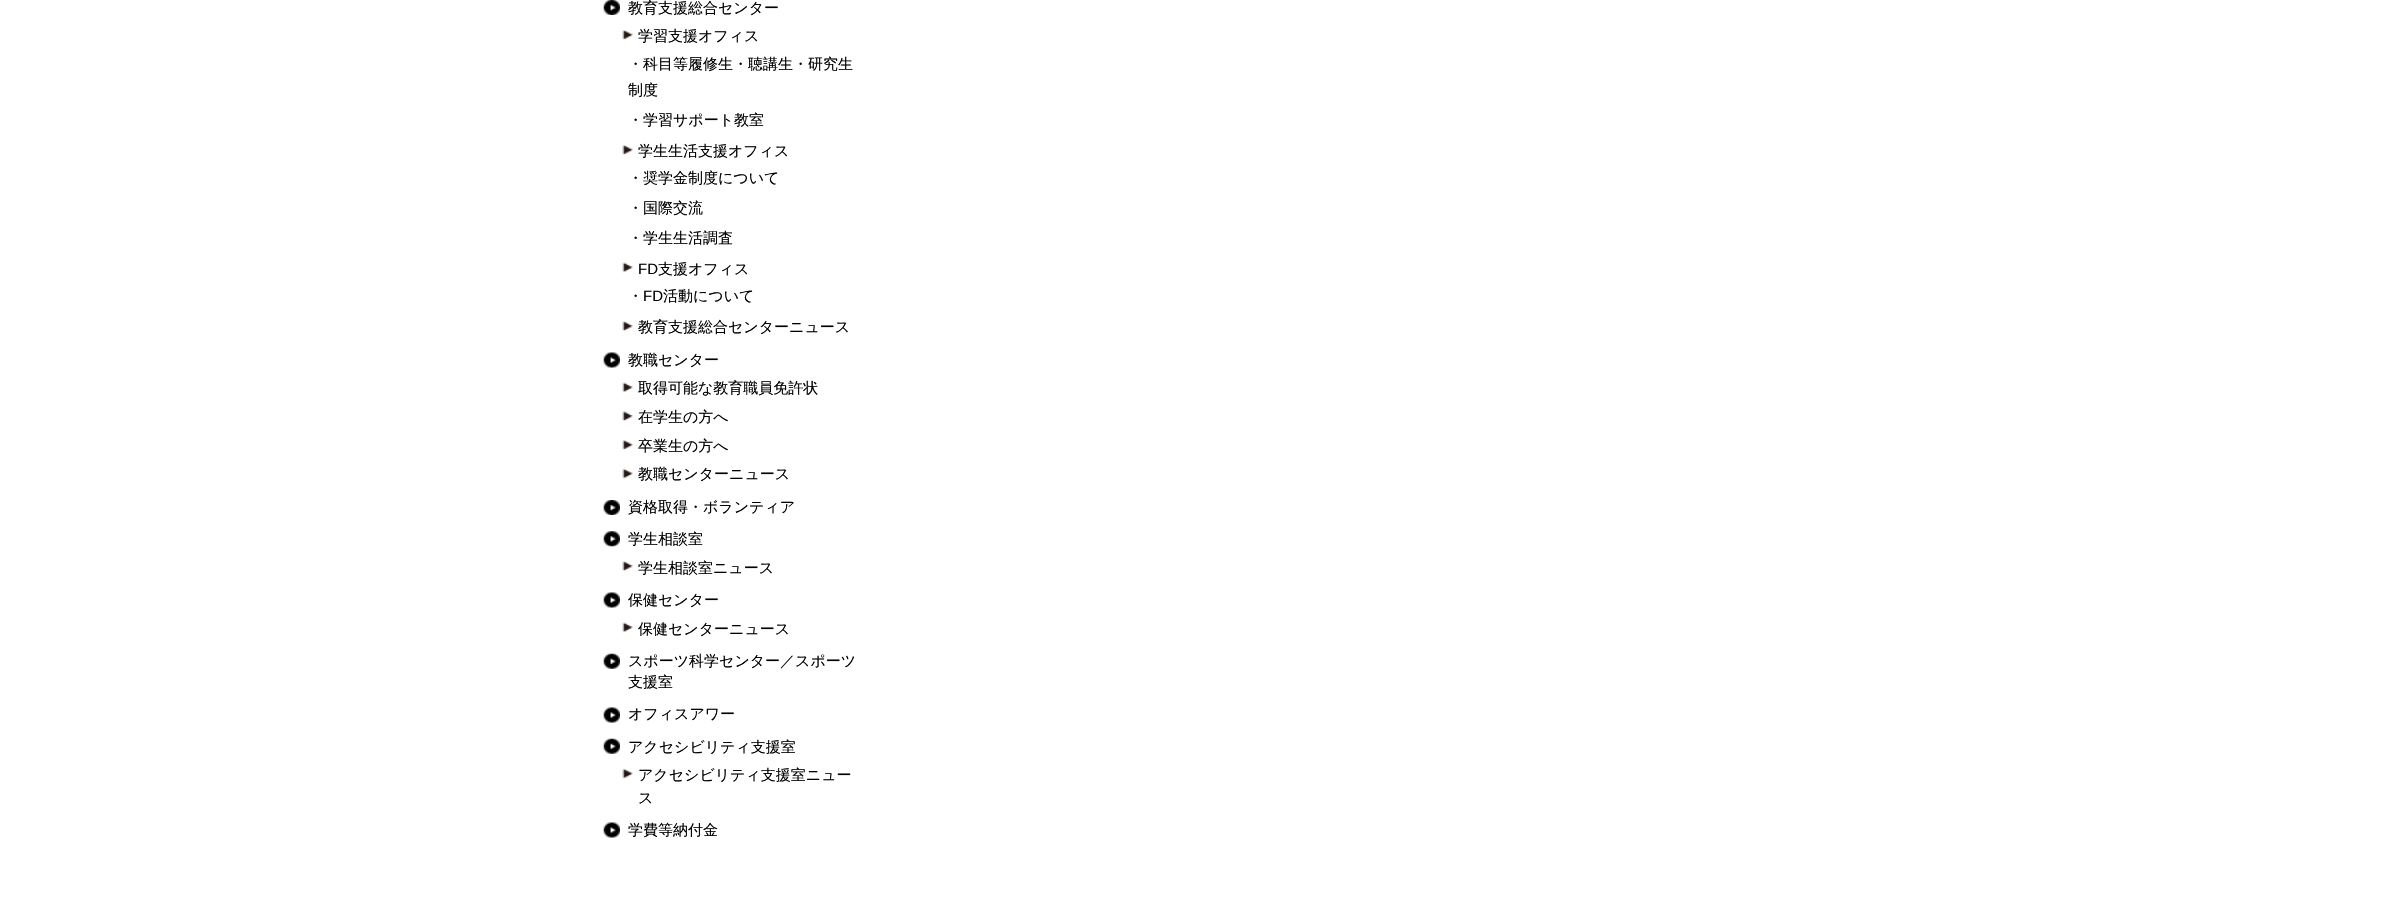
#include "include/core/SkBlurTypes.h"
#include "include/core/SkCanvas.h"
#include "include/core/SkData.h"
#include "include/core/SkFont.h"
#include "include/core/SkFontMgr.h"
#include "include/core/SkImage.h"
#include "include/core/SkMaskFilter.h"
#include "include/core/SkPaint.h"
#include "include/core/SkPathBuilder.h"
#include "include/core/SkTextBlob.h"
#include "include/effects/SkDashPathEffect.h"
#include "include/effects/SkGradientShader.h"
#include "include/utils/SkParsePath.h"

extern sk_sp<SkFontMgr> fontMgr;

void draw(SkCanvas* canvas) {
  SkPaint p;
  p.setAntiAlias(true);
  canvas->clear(SK_ColorWHITE);
  canvas->drawImageRect(SkImages::DeferredFromEncodedData(SkData::MakeFromFileName("images/1.png")), SkRect::MakeLTRB(603, 0, 620, 15), SkSamplingOptions());
  canvas->drawImageRect(SkImages::DeferredFromEncodedData(SkData::MakeFromFileName("images/2.png")), SkRect::MakeLTRB(622, 30, 633, 40), SkSamplingOptions());
  canvas->drawImageRect(SkImages::DeferredFromEncodedData(SkData::MakeFromFileName("images/2.png")), SkRect::MakeLTRB(622, 145, 633, 155), SkSamplingOptions());
  canvas->drawImageRect(SkImages::DeferredFromEncodedData(SkData::MakeFromFileName("images/3.png")), SkRect::MakeLTRB(622, 262, 633, 273), SkSamplingOptions());
  canvas->drawImageRect(SkImages::DeferredFromEncodedData(SkData::MakeFromFileName("images/4.png")), SkRect::MakeLTRB(622, 321, 633, 331), SkSamplingOptions());
  canvas->drawImageRect(SkImages::DeferredFromEncodedData(SkData::MakeFromFileName("images/5.png")), SkRect::MakeLTRB(603, 352, 620, 368), SkSamplingOptions());
  canvas->drawImageRect(SkImages::DeferredFromEncodedData(SkData::MakeFromFileName("images/3.png")), SkRect::MakeLTRB(622, 382, 633, 393), SkSamplingOptions());
  canvas->drawImageRect(SkImages::DeferredFromEncodedData(SkData::MakeFromFileName("images/4.png")), SkRect::MakeLTRB(622, 411, 633, 421), SkSamplingOptions());
  canvas->drawImageRect(SkImages::DeferredFromEncodedData(SkData::MakeFromFileName("images/2.png")), SkRect::MakeLTRB(622, 440, 633, 450), SkSamplingOptions());
  canvas->drawImageRect(SkImages::DeferredFromEncodedData(SkData::MakeFromFileName("images/6.png")), SkRect::MakeLTRB(622, 468, 633, 479), SkSamplingOptions());
  canvas->drawImageRect(SkImages::DeferredFromEncodedData(SkData::MakeFromFileName("images/1.png")), SkRect::MakeLTRB(603, 500, 620, 515), SkSamplingOptions());
  canvas->drawImageRect(SkImages::DeferredFromEncodedData(SkData::MakeFromFileName("images/7.png")), SkRect::MakeLTRB(603, 531, 620, 547), SkSamplingOptions());
  canvas->drawImageRect(SkImages::DeferredFromEncodedData(SkData::MakeFromFileName("images/4.png")), SkRect::MakeLTRB(622, 561, 633, 571), SkSamplingOptions());
  canvas->drawImageRect(SkImages::DeferredFromEncodedData(SkData::MakeFromFileName("images/5.png")), SkRect::MakeLTRB(603, 592, 620, 608), SkSamplingOptions());
  canvas->drawImageRect(SkImages::DeferredFromEncodedData(SkData::MakeFromFileName("images/3.png")), SkRect::MakeLTRB(622, 622, 633, 633), SkSamplingOptions());
  canvas->drawImageRect(SkImages::DeferredFromEncodedData(SkData::MakeFromFileName("images/8.png")), SkRect::MakeLTRB(603, 653, 620, 669), SkSamplingOptions());
  canvas->drawImageRect(SkImages::DeferredFromEncodedData(SkData::MakeFromFileName("images/5.png")), SkRect::MakeLTRB(603, 707, 620, 723), SkSamplingOptions());
  canvas->drawImageRect(SkImages::DeferredFromEncodedData(SkData::MakeFromFileName("images/8.png")), SkRect::MakeLTRB(603, 738, 620, 754), SkSamplingOptions());
  canvas->drawImageRect(SkImages::DeferredFromEncodedData(SkData::MakeFromFileName("images/6.png")), SkRect::MakeLTRB(622, 768, 633, 779), SkSamplingOptions());
  canvas->drawImageRect(SkImages::DeferredFromEncodedData(SkData::MakeFromFileName("images/5.png")), SkRect::MakeLTRB(603, 822, 620, 838), SkSamplingOptions());
  SkFont font1(fontMgr->matchFamilyStyle("WenQuanYi Zen Hei", SkFontStyle(500, SkFontStyle::kNormal_Width, SkFontStyle::kUpright_Slant)), 15);
  font1.setSubpixel(true);
  p.setColor(SK_ColorBLACK);
  canvas->drawString("教育支援総合センター", 628, 13, font1, p);
  canvas->drawString("学習支援オフィス", 638, 41, font1, p);
  canvas->drawString("・科目等履修生・聴講生・研究生", 628, 69, font1, p);
  canvas->drawString("制度", 628, 95, font1, p);
  canvas->drawString("・学習サポート教室", 628, 125, font1, p);
  canvas->drawString("学生生活支援オフィス", 638, 156, font1, p);
  canvas->drawString("・奨学金制度について", 628, 183, font1, p);
  canvas->drawString("・国際交流", 628, 213, font1, p);
  canvas->drawString("・学生生活調査", 628, 243, font1, p);
  SkFont font2(fontMgr->matchFamilyStyle("Liberation Sans", SkFontStyle::Normal()), 15);
  font2.setSubpixel(true);
  canvas->drawString("FD", 638, 274, font2, p);
  canvas->drawString("支援オフィス", 658, 274, font1, p);
  canvas->drawString("・", 628, 301, font1, p);
  canvas->drawString("FD", 643, 301, font2, p);
  canvas->drawString("活動について", 663, 301, font1, p);
  canvas->drawString("教育支援総合センターニュース", 638, 332, font1, p);
  canvas->drawString("教職センター", 628, 365, font1, p);
  canvas->drawString("取得可能な教育職員免許状", 638, 393, font1, p);
  canvas->drawString("在学生の方へ", 638, 422, font1, p);
  canvas->drawString("卒業生の方へ", 638, 451, font1, p);
  canvas->drawString("教職センターニュース", 638, 479, font1, p);
  canvas->drawString("資格取得・ボランティア", 628, 512, font1, p);
  canvas->drawString("学生相談室", 628, 544, font1, p);
  canvas->drawString("学生相談室ニュース", 638, 573, font1, p);
  canvas->drawString("保健センター", 628, 605, font1, p);
  canvas->drawString("保健センターニュース", 638, 634, font1, p);
  canvas->drawString("スポーツ科学センター／スポーツ", 628, 666, font1, p);
  canvas->drawString("支援室", 628, 687, font1, p);
  canvas->drawString("オフィスアワー", 628, 719, font1, p);
  canvas->drawString("アクセシビリティ支援室", 628, 752, font1, p);
  canvas->drawString("アクセシビリティ支援室ニュー", 638, 780, font1, p);
  canvas->drawString("ス", 638, 803, font1, p);
  canvas->drawString("学費等納付金", 628, 835, font1, p);
}
